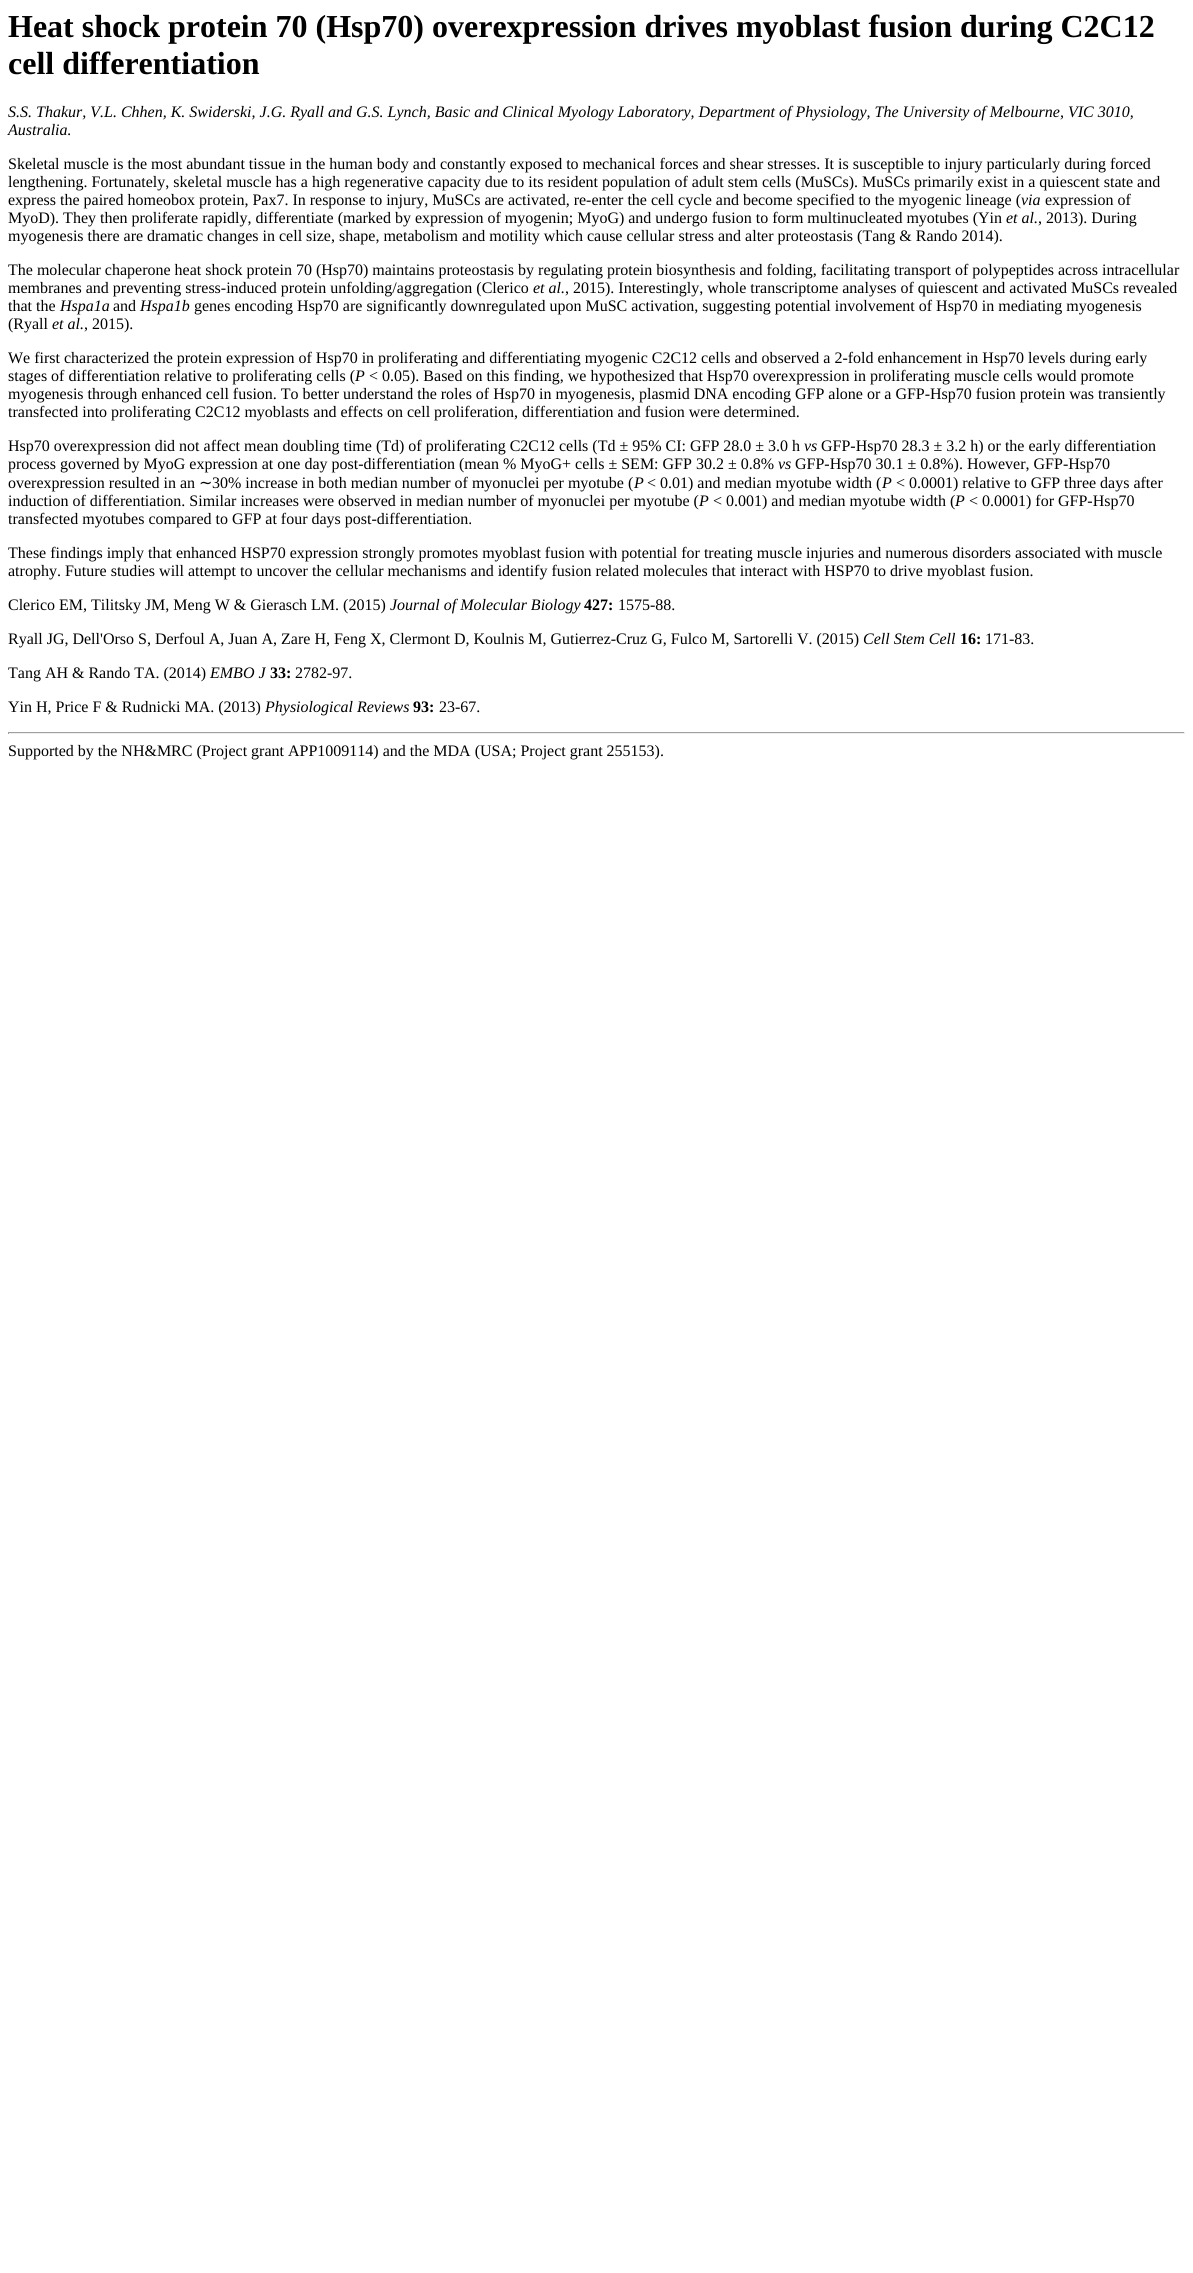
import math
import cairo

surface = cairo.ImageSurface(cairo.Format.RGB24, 1193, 2273)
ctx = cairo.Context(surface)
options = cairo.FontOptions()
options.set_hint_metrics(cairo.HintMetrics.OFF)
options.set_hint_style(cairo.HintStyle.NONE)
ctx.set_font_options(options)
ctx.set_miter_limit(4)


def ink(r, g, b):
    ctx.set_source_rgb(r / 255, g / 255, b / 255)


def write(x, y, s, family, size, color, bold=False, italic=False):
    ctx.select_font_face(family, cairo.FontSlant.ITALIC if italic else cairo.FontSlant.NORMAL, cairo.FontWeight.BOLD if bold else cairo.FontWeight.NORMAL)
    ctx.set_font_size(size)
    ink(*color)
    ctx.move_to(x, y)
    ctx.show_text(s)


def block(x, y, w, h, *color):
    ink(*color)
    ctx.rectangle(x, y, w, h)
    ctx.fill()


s1 = dict(family="Liberation Serif", size=32, color=(0, 0, 0), bold=True)
s2 = dict(family="Liberation Serif", size=16, color=(0, 0, 0), italic=True)
s3 = dict(family="Liberation Serif", size=16, color=(0, 0, 0))
s4 = dict(family="DejaVu Sans", size=16, color=(0, 0, 0))
s5 = dict(family="Liberation Serif", size=16, color=(0, 0, 0), bold=True)

ink(255, 255, 255)
ctx.paint()
write(8, 37, "Heat shock protein 70 (Hsp70) overexpression drives myoblast fusion during C2C12", **s1)
write(8, 74, "cell differentiation", **s1)
write(8, 117, "S.S. Thakur, V.L. Chhen, K. Swiderski, J.G. Ryall and G.S. Lynch, Basic and Clinical Myology Laboratory, Department of Physiology, The University of Melbourne, VIC 3010,", **s2)
write(8, 135, "Australia.", **s2)
write(8, 169, "Skeletal muscle is the most abundant tissue in the human body and constantly exposed to mechanical forces and shear stresses. It is susceptible to injury particularly during forced", **s3)
write(8, 187, "lengthening. Fortunately, skeletal muscle has a high regenerative capacity due to its resident population of adult stem cells (MuSCs). MuSCs primarily exist in a quiescent state and", **s3)
write(8, 205, "express the paired homeobox protein, Pax7. In response to injury, MuSCs are activated, re-enter the cell cycle and become specified to the myogenic lineage (", **s3)
write(1021, 205, "via", **s2)
write(1045, 205, "expression of", **s3)
write(8, 223, "MyoD). They then proliferate rapidly, differentiate (marked by expression of myogenin; MyoG) and undergo fusion to form multinucleated myotubes (Yin", **s3)
write(1006, 223, "et al.", **s2)
write(1038, 223, ", 2013). During", **s3)
write(8, 241, "myogenesis there are dramatic changes in cell size, shape, metabolism and motility which cause cellular stress and alter proteostasis (Tang & Rando 2014).", **s3)
write(8, 275, "The molecular chaperone heat shock protein 70 (Hsp70) maintains proteostasis by regulating protein biosynthesis and folding, facilitating transport of polypeptides across intracellular", **s3)
write(8, 293, "membranes and preventing stress-induced protein unfolding/aggregation (Clerico", **s3)
write(533, 293, "et al.", **s2)
write(565, 293, ", 2015). Interestingly, whole transcriptome analyses of quiescent and activated MuSCs revealed", **s3)
write(8, 311, "that the", **s3)
write(60, 311, "Hspa1a", **s2)
write(113, 311, "and", **s3)
write(140, 311, "Hspa1b", **s2)
write(194, 311, "genes encoding Hsp70 are significantly downregulated upon MuSC activation, suggesting potential involvement of Hsp70 in mediating myogenesis", **s3)
write(8, 329, "(Ryall", **s3)
write(52, 329, "et al.", **s2)
write(84, 329, ", 2015).", **s3)
write(8, 363, "We first characterized the protein expression of Hsp70 in proliferating and differentiating myogenic C2C12 cells and observed a 2-fold enhancement in Hsp70 levels during early", **s3)
write(8, 381, "stages of differentiation relative to proliferating cells (", **s3)
write(355, 381, "P", **s2)
write(369, 381, "< 0.05). Based on this finding, we hypothesized that Hsp70 overexpression in proliferating muscle cells would promote", **s3)
write(8, 399, "myogenesis through enhanced cell fusion. To better understand the roles of Hsp70 in myogenesis, plasmid DNA encoding GFP alone or a GFP-Hsp70 fusion protein was transiently", **s3)
write(8, 417, "transfected into proliferating C2C12 myoblasts and effects on cell proliferation, differentiation and fusion were determined.", **s3)
write(8, 451, "Hsp70 overexpression did not affect mean doubling time (Td) of proliferating C2C12 cells (Td ± 95% CI: GFP 28.0 ± 3.0 h", **s3)
write(804, 451, "vs", **s2)
write(821, 451, "GFP-Hsp70 28.3 ± 3.2 h) or the early differentiation", **s3)
write(8, 469, "process governed by MyoG expression at one day post-differentiation (mean % MyoG+ cells ± SEM: GFP 30.2 ± 0.8%", **s3)
write(778, 469, "vs", **s2)
write(795, 469, "GFP-Hsp70 30.1 ± 0.8%). However, GFP-Hsp70", **s3)
write(8, 488, "overexpression resulted in an", **s3)
write(199, 488, "∼", **s4)
write(212, 488, "30% increase in both median number of myonuclei per myotube (", **s3)
write(634, 488, "P", **s2)
write(647, 488, "< 0.01) and median myotube width (", **s3)
write(882, 488, "P", **s2)
write(896, 488, "< 0.0001) relative to GFP three days after", **s3)
write(8, 506, "induction of differentiation. Similar increases were observed in median number of myonuclei per myotube (", **s3)
write(699, 506, "P", **s2)
write(713, 506, "< 0.001) and median myotube width (", **s3)
write(955, 506, "P", **s2)
write(969, 506, "< 0.0001) for GFP-Hsp70", **s3)
write(8, 524, "transfected myotubes compared to GFP at four days post-differentiation.", **s3)
write(8, 558, "These findings imply that enhanced HSP70 expression strongly promotes myoblast fusion with potential for treating muscle injuries and numerous disorders associated with muscle", **s3)
write(8, 576, "atrophy. Future studies will attempt to uncover the cellular mechanisms and identify fusion related molecules that interact with HSP70 to drive myoblast fusion.", **s3)
write(8, 610, "Clerico EM, Tilitsky JM, Meng W & Gierasch LM. (2015)", **s3)
write(390, 610, "Journal of Molecular Biology", **s2)
write(584, 610, "427:", **s5)
write(618, 610, "1575-88.", **s3)
write(8, 644, "Ryall JG, Dell'Orso S, Derfoul A, Juan A, Zare H, Feng X, Clermont D, Koulnis M, Gutierrez-Cruz G, Fulco M, Sartorelli V. (2015)", **s3)
write(863, 644, "Cell Stem Cell", **s2)
write(960, 644, "16:", **s5)
write(985, 644, "171-83.", **s3)
write(8, 678, "Tang AH & Rando TA. (2014)", **s3)
write(210, 678, "EMBO J", **s2)
write(270, 678, "33:", **s5)
write(295, 678, "2782-97.", **s3)
write(8, 712, "Yin H, Price F & Rudnicki MA. (2013)", **s3)
write(265, 712, "Physiological Reviews", **s2)
write(413, 712, "93:", **s5)
write(439, 712, "23-67.", **s3)
block(8, 732, 1177, 1, 159, 159, 159)
block(1184, 732, 1, 2, 238, 238, 238)
block(8, 733, 1177, 1, 238, 238, 238)
block(8, 732, 1, 2, 159, 159, 159)
write(8, 756, "Supported by the NH&MRC (Project grant APP1009114) and the MDA (USA; Project grant 255153).", **s3)
surface.write_to_png("screenshot.png")
